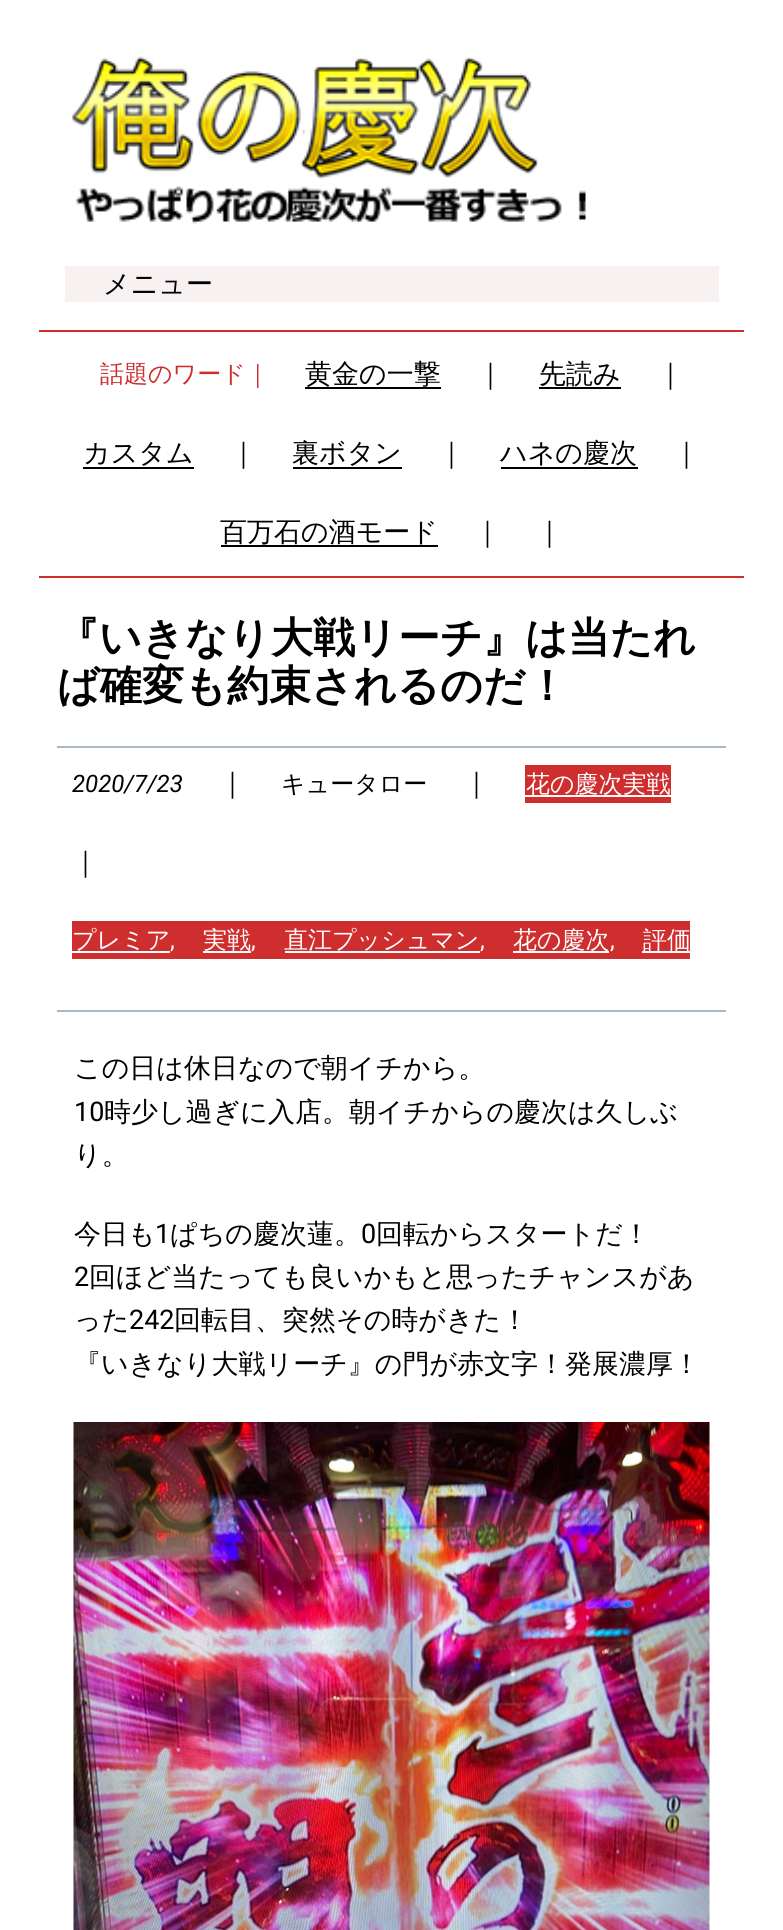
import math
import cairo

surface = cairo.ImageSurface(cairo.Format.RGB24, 783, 1930)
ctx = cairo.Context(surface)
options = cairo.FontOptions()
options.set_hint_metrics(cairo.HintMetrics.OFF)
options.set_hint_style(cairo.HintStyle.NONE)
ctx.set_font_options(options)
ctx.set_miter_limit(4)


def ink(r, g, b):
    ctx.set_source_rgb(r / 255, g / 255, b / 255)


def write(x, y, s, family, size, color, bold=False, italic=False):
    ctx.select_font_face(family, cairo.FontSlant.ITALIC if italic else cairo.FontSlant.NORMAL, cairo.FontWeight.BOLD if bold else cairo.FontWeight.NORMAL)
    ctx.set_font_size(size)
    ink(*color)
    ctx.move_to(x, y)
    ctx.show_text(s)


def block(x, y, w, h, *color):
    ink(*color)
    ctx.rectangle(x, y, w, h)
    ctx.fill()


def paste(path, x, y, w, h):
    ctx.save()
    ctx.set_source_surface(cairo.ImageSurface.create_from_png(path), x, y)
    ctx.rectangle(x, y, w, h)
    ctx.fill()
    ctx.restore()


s1 = dict(family="WenQuanYi Zen Hei Medium", size=27, color=(0, 0, 0))
s2 = dict(family="WenQuanYi Zen Hei Medium", size=24, color=(207, 46, 46))
s3 = dict(family="WenQuanYi Zen Hei", size=42, color=(0, 0, 0), bold=True)
s4 = dict(family="Roboto", size=24, color=(0, 0, 0), italic=True)
s5 = dict(family="WenQuanYi Zen Hei Medium", size=24, color=(0, 0, 0))
s6 = dict(family="WenQuanYi Zen Hei Medium", size=24, color=(255, 255, 255))
s7 = dict(family="Roboto", size=24, color=(255, 255, 255))
s8 = dict(family="Roboto", size=27, color=(0, 0, 0))

ink(255, 255, 255)
ctx.paint()
paste("pic1.png", 71, 56, 515, 168)
block(65, 266, 654, 36, 247, 241, 242)
write(103, 293, "メニュー", **s1)
block(39, 330, 705, 2, 207, 46, 46)
write(100, 382, "話題のワード｜", **s2)
block(305, 387, 136, 2, 0, 0, 0)
write(305, 383, "黄金の一撃", **s1)
write(477, 383, "｜", **s1)
write(539, 383, "先読み", **s1)
block(539, 387, 82, 2, 0, 0, 0)
write(657, 383, "｜", **s1)
write(83, 462, "カスタム", **s1)
block(83, 467, 111, 2, 0, 0, 0)
write(230, 462, "｜", **s1)
write(292, 462, "裏ボタン", **s1)
block(293, 467, 109, 2, 0, 0, 0)
write(438, 462, "｜", **s1)
write(500, 462, "ハネの慶次", **s1)
block(501, 467, 137, 2, 0, 0, 0)
write(673, 462, "｜", **s1)
write(220, 541, "百万石の酒モード", **s1)
block(221, 545, 217, 2, 0, 0, 0)
write(474, 541, "｜", **s1)
write(536, 541, "｜", **s1)
block(39, 576, 705, 2, 207, 46, 46)
write(57, 652, "『いきなり大戦リーチ』は当たれ", **s3)
write(57, 700, "ば確変も約束されるのだ！", **s3)
block(57, 746, 669, 2, 171, 184, 195)
write(72, 792, "2020/7/23", **s4)
write(219, 792, "｜", **s1)
write(281, 792, "キュータロー", **s5)
write(463, 792, "｜", **s1)
block(525, 765, 146, 38, 207, 46, 46)
block(525, 795, 146, 2, 255, 255, 255)
write(526, 792, "花の慶次実戦", **s6)
write(72, 871, "｜", **s1)
block(72, 921, 618, 38, 207, 46, 46)
write(72, 948, "プレミア", **s6)
block(72, 951, 98, 2, 255, 255, 255)
write(170, 948, ",", **s7)
block(203, 951, 48, 2, 255, 255, 255)
write(203, 948, "実戦", **s6)
write(251, 948, ",", **s7)
write(284, 948, "直江プッシュマン", **s6)
block(285, 951, 195, 2, 255, 255, 255)
write(480, 948, ",", **s7)
block(513, 951, 96, 2, 255, 255, 255)
write(513, 948, "花の慶次", **s6)
write(610, 948, ",", **s7)
block(642, 951, 48, 2, 255, 255, 255)
write(643, 948, "評価", **s6)
block(57, 1010, 669, 2, 171, 184, 195)
write(74, 1077, "この日は休日なので朝イチから。", **s1)
write(74, 1121, "10", **s8)
write(104, 1121, "時少し過ぎに入店。朝イチからの慶次は久しぶ", **s1)
write(74, 1164, "り。", **s1)
write(74, 1243, "今日も", **s1)
write(155, 1243, "1", **s8)
write(170, 1243, "ぱちの慶次蓮。", **s1)
write(361, 1243, "0", **s8)
write(376, 1243, "回転からスタートだ！", **s1)
write(74, 1286, "2", **s8)
write(89, 1286, "回ほど当たっても良いかもと思ったチャンスがあ", **s1)
write(74, 1329, "った", **s1)
write(129, 1329, "242", **s8)
write(174, 1329, "回転目、突然その時がきた！", **s1)
write(74, 1373, "『いきなり大戦リーチ』の門が赤文字！発展濃厚！", **s1)
paste("pic2.png", 73, 1422, 637, 508)
surface.write_to_png("screenshot.png")
